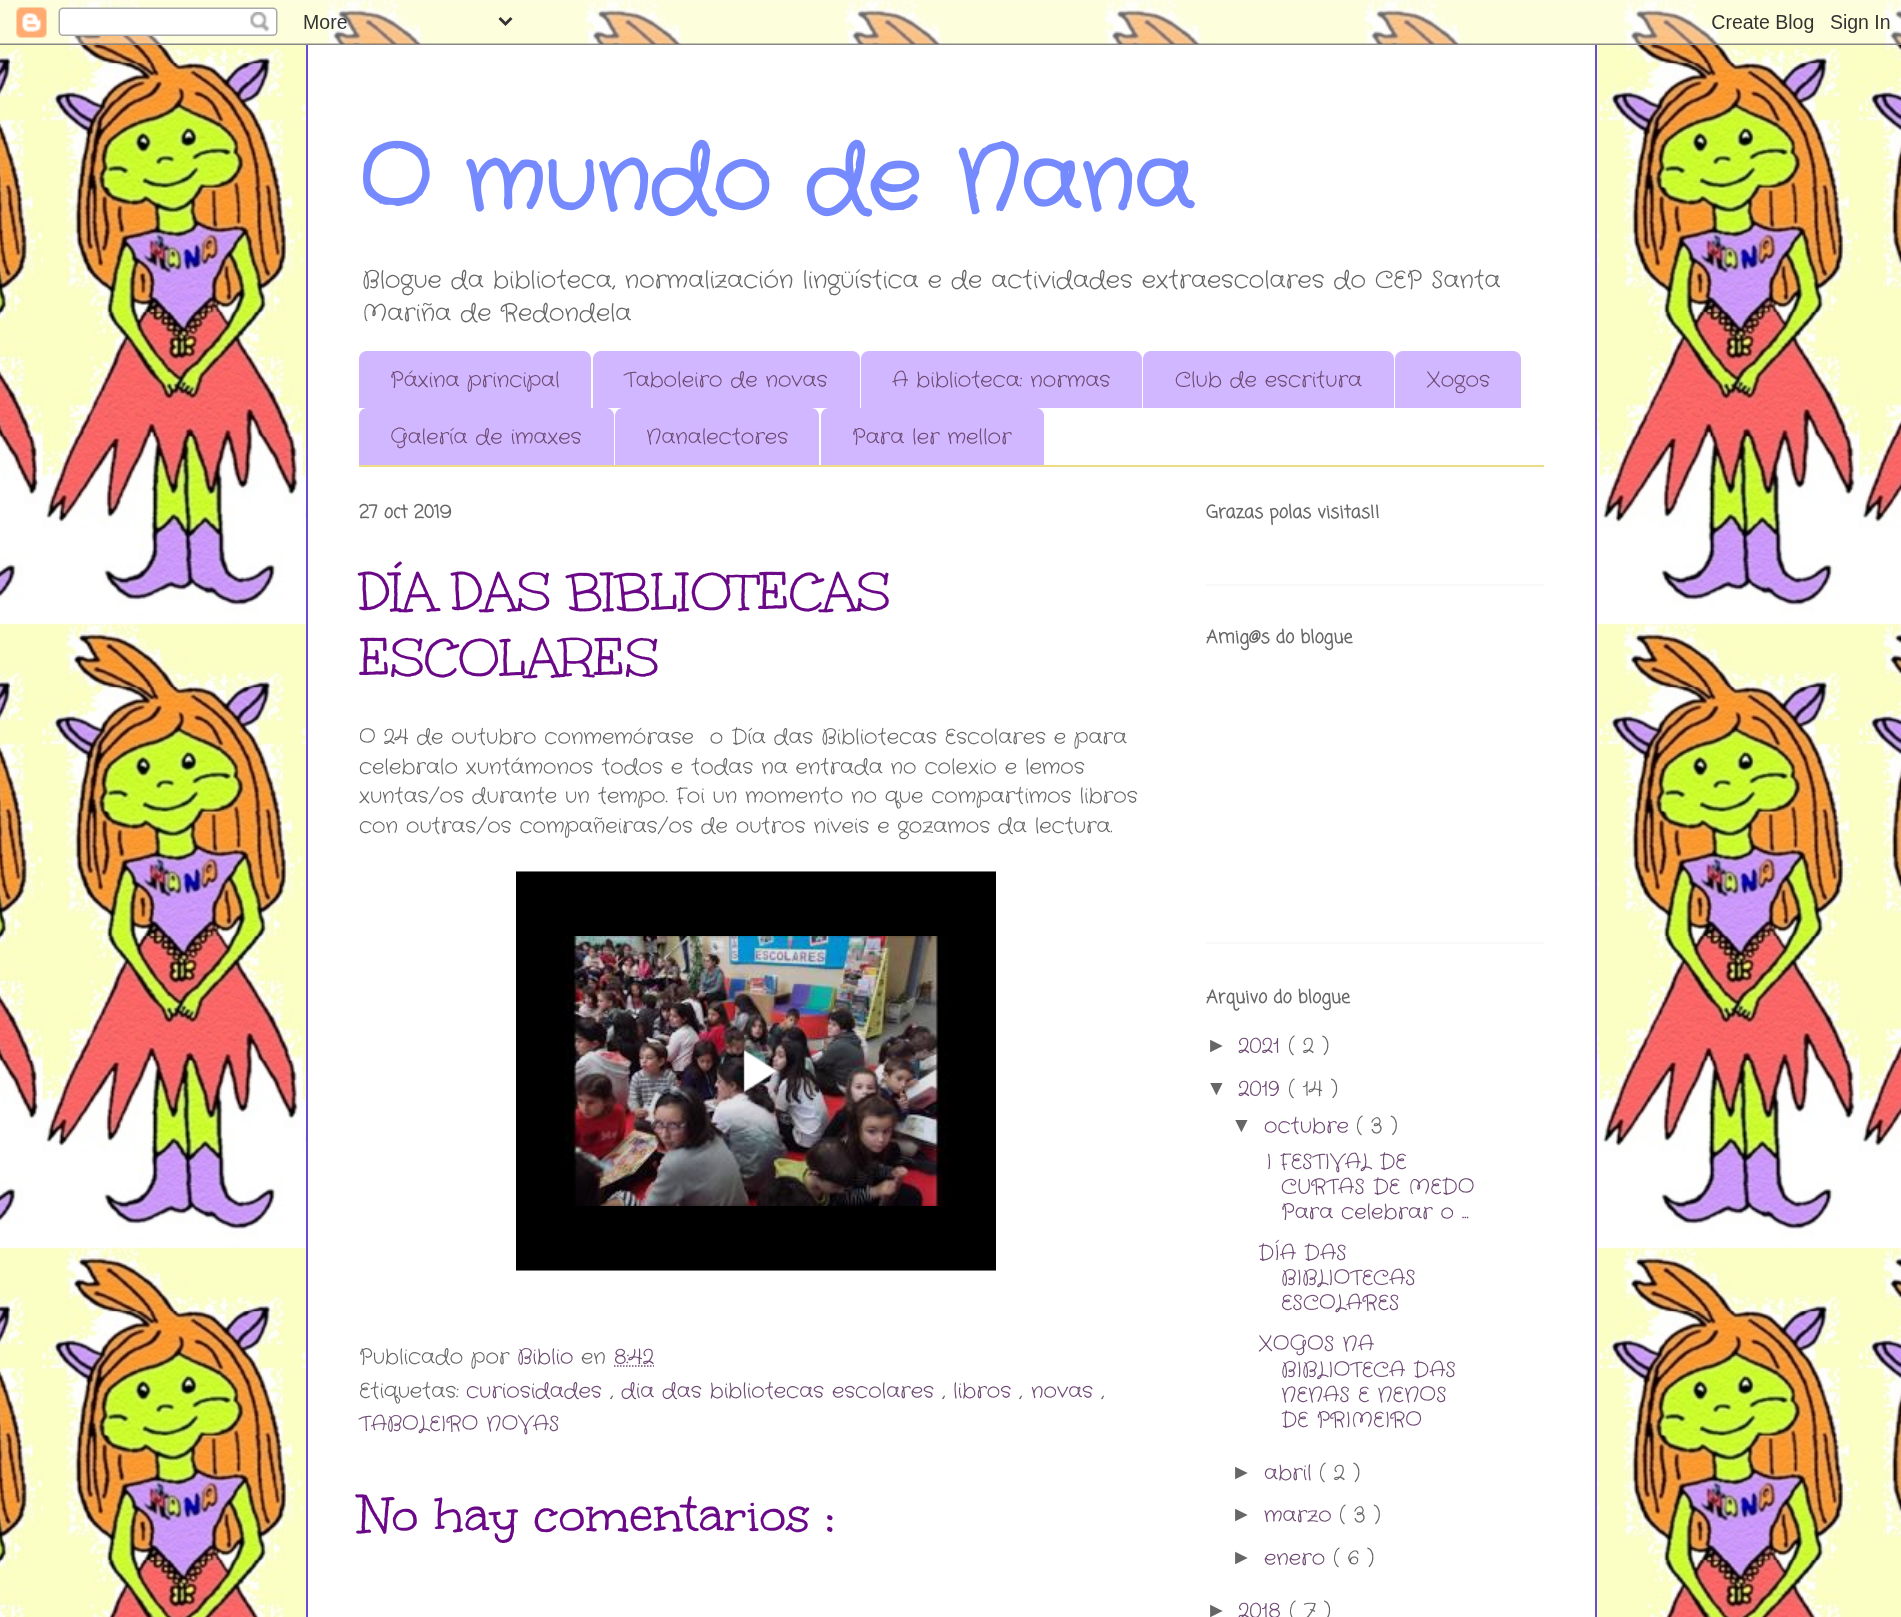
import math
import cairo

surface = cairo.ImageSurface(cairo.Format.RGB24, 1901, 1617)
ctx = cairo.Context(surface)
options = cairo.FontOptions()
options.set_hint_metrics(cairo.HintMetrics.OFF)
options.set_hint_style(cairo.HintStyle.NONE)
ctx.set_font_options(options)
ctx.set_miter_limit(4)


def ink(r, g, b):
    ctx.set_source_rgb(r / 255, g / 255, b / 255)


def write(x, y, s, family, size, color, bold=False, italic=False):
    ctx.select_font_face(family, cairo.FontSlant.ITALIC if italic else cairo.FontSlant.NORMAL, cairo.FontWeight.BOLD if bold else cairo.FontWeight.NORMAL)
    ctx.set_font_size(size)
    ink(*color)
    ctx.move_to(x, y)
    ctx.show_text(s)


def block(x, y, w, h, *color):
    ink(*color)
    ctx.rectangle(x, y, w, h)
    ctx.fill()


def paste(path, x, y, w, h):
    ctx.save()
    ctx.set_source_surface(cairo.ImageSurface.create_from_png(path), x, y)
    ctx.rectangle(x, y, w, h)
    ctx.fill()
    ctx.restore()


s1 = dict(family="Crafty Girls", size=90, color=(117, 138, 255), bold=True)
s2 = dict(family="Crafty Girls", size=24.15, color=(102, 102, 102))
s3 = dict(family="Crafty Girls", size=21, color=(110, 73, 115))
s4 = dict(family="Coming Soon", size=18, color=(102, 102, 102), bold=True)
s5 = dict(family="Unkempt", size=54, color=(106, 8, 136))
s6 = dict(family="Crafty Girls", size=21, color=(102, 102, 102))
s7 = dict(family="Liberation Sans", size=21, color=(102, 102, 102))

ink(255, 255, 255)
ctx.paint()
paste("pic1.png", 0, 0, 1901, 1617)
paste("pic2.png", 0, 0, 1901, 45)
block(308, 45, 1287, 1572, 255, 255, 255)
block(1595, 45, 2, 1572, 105, 76, 216)
block(306, 45, 2, 1572, 105, 76, 216)
write(359, 207, "O mundo de Nana", **s1)
write(362, 287, "Blogue da biblioteca, normalización lingüística e de actividades extraescolares do CEP Santa", **s2)
write(362, 320, "Mariña de Redondela", **s2)
block(359, 465, 1185, 2, 237, 220, 131)
ink(209, 183, 255)
ctx.new_path()
ctx.move_to(367, 351)
ctx.line_to(583, 351)
ctx.curve_to(587.5, 351, 591, 354.5, 591, 359)
ctx.line_to(591, 408)
ctx.line_to(359, 408)
ctx.line_to(359, 359)
ctx.curve_to(359, 354.5, 362.5, 351, 367, 351)
ctx.close_path()
ctx.fill()
write(390, 386, "Páxina principal", **s3)
ink(209, 183, 255)
ctx.new_path()
ctx.move_to(601, 351)
ctx.line_to(852, 351)
ctx.curve_to(856.5, 351, 860, 354.5, 860, 359)
ctx.line_to(860, 408)
ctx.line_to(593, 408)
ctx.line_to(593, 359)
ctx.curve_to(593, 354.5, 596.5, 351, 601, 351)
ctx.close_path()
ctx.fill()
write(624, 386, "Taboleiro de novas", **s3)
ink(209, 183, 255)
ctx.new_path()
ctx.move_to(869, 351)
ctx.line_to(1134, 351)
ctx.curve_to(1138.5, 351, 1142, 354.5, 1142, 359)
ctx.line_to(1142, 408)
ctx.line_to(861, 408)
ctx.line_to(861, 359)
ctx.curve_to(861, 354.5, 864.5, 351, 869, 351)
ctx.close_path()
ctx.fill()
write(892, 386, "A biblioteca: normas", **s3)
ink(209, 183, 255)
ctx.new_path()
ctx.move_to(1151, 351)
ctx.line_to(1386, 351)
ctx.curve_to(1390.5, 351, 1394, 354.5, 1394, 359)
ctx.line_to(1394, 408)
ctx.line_to(1143, 408)
ctx.line_to(1143, 359)
ctx.curve_to(1143, 354.5, 1146.5, 351, 1151, 351)
ctx.close_path()
ctx.fill()
write(1175, 386, "Club de escritura", **s3)
ink(209, 183, 255)
ctx.new_path()
ctx.move_to(1403, 351)
ctx.line_to(1513, 351)
ctx.curve_to(1517.5, 351, 1521, 354.5, 1521, 359)
ctx.line_to(1521, 408)
ctx.line_to(1395, 408)
ctx.line_to(1395, 359)
ctx.curve_to(1395, 354.5, 1398.5, 351, 1403, 351)
ctx.close_path()
ctx.fill()
write(1426, 386, "Xogos", **s3)
ink(209, 183, 255)
ctx.new_path()
ctx.move_to(367, 408)
ctx.line_to(606, 408)
ctx.curve_to(610.5, 408, 614, 411.5, 614, 416)
ctx.line_to(614, 465)
ctx.line_to(359, 465)
ctx.line_to(359, 416)
ctx.curve_to(359, 411.5, 362.5, 408, 367, 408)
ctx.close_path()
ctx.fill()
write(390, 443, "Galería de imaxes", **s3)
ink(209, 183, 255)
ctx.new_path()
ctx.move_to(623, 408)
ctx.line_to(811, 408)
ctx.curve_to(815.5, 408, 819, 411.5, 819, 416)
ctx.line_to(819, 465)
ctx.line_to(615, 465)
ctx.line_to(615, 416)
ctx.curve_to(615, 411.5, 618.5, 408, 623, 408)
ctx.close_path()
ctx.fill()
write(646, 443, "Nanalectores", **s3)
ink(209, 183, 255)
ctx.new_path()
ctx.move_to(829, 408)
ctx.line_to(1036, 408)
ctx.curve_to(1040.5, 408, 1044, 411.5, 1044, 416)
ctx.line_to(1044, 465)
ctx.line_to(821, 465)
ctx.line_to(821, 416)
ctx.curve_to(821, 411.5, 824.5, 408, 829, 408)
ctx.close_path()
ctx.fill()
write(852, 443, "Para ler mellor", **s3)
write(359, 518, "27 oct 2019", **s4)
write(359, 611, "DÍA DAS BIBLIOTECAS", **s5)
write(359, 677, "ESCOLARES", **s5)
write(359, 743, "O 24 de outubro conmemórase  o Día das Bibliotecas Escolares e para", **s6)
write(359, 773, "celebralo xuntámonos todos e todas na entrada no colexio e lemos", **s6)
write(359, 802, "xuntas/os durante un tempo. Foi un momento no que compartimos libros", **s6)
write(359, 832, "con outras/os compañeiras/os de outros niveis e gozamos da lectura.", **s6)
paste("pic3.png", 516, 871, 480, 400)
write(359, 1363, "Publicado por", **s6)
write(517, 1363, "Biblio", **s3)
write(581, 1363, "en", **s6)
write(614, 1363, "8:42", **s3)
ctx.new_path()
ctx.move_to(614, 1366)
ctx.line_to(654, 1366)
ctx.set_line_width(1.5)
ctx.set_dash([1.5, 1.5])
ctx.stroke()
write(359, 1397, "Etiquetas:", **s6)
write(466, 1397, "curiosidades", **s3)
write(610, 1397, ",", **s6)
write(621, 1397, "dia das bibliotecas escolares", **s3)
write(942, 1397, ",", **s6)
write(953, 1397, "libros", **s3)
write(1019, 1397, ",", **s6)
write(1031, 1397, "novas", **s3)
write(1101, 1397, ",", **s6)
write(359, 1430, "TABOLEIRO NOVAS", **s3)
write(359, 1534, "No hay comentarios :", **s5)
block(1206, 584, 338, 2, 249, 249, 249)
write(1206, 518, "Grazas polas visitas!!", **s4)
block(1206, 942, 338, 2, 249, 249, 249)
write(1206, 643, "Amig@s do blogue", **s4)
write(1206, 1003, "Arquivo do blogue", **s4)
write(1206, 1052, "►", **s7)
write(1238, 1052, "2021", **s3)
write(1288, 1052, "( 2 )", **s6)
write(1206, 1095, "▼", **s7)
write(1238, 1095, "2019", **s3)
write(1288, 1095, "( 14 )", **s6)
write(1231, 1132, "▼", **s7)
write(1264, 1132, "octubre", **s3)
write(1356, 1132, "( 3 )", **s6)
write(1266, 1168, "I FESTIVAL DE", **s3)
write(1281, 1193, "CURTAS DE MEDO", **s3)
write(1281, 1218, "Para celebrar o ...", **s3)
write(1258, 1259, "DÍA DAS", **s3)
write(1281, 1284, "BIBLIOTECAS", **s3)
write(1281, 1309, "ESCOLARES", **s3)
write(1258, 1350, "XOGOS NA", **s3)
write(1281, 1376, "BIBLIOTECA DAS", **s3)
write(1281, 1401, "NENAS E NENOS", **s3)
write(1281, 1426, "DE PRIMEIRO", **s3)
write(1231, 1479, "►", **s7)
write(1264, 1479, "abril", **s3)
write(1319, 1479, "( 2 )", **s6)
write(1231, 1521, "►", **s7)
write(1264, 1521, "marzo", **s3)
write(1339, 1521, "( 3 )", **s6)
write(1231, 1564, "►", **s7)
write(1264, 1564, "enero", **s3)
write(1333, 1564, "( 6 )", **s6)
write(1206, 1617, "►", **s7)
write(1238, 1617, "2018", **s3)
write(1289, 1617, "( 7 )", **s6)
surface.write_to_png("screenshot.png")
